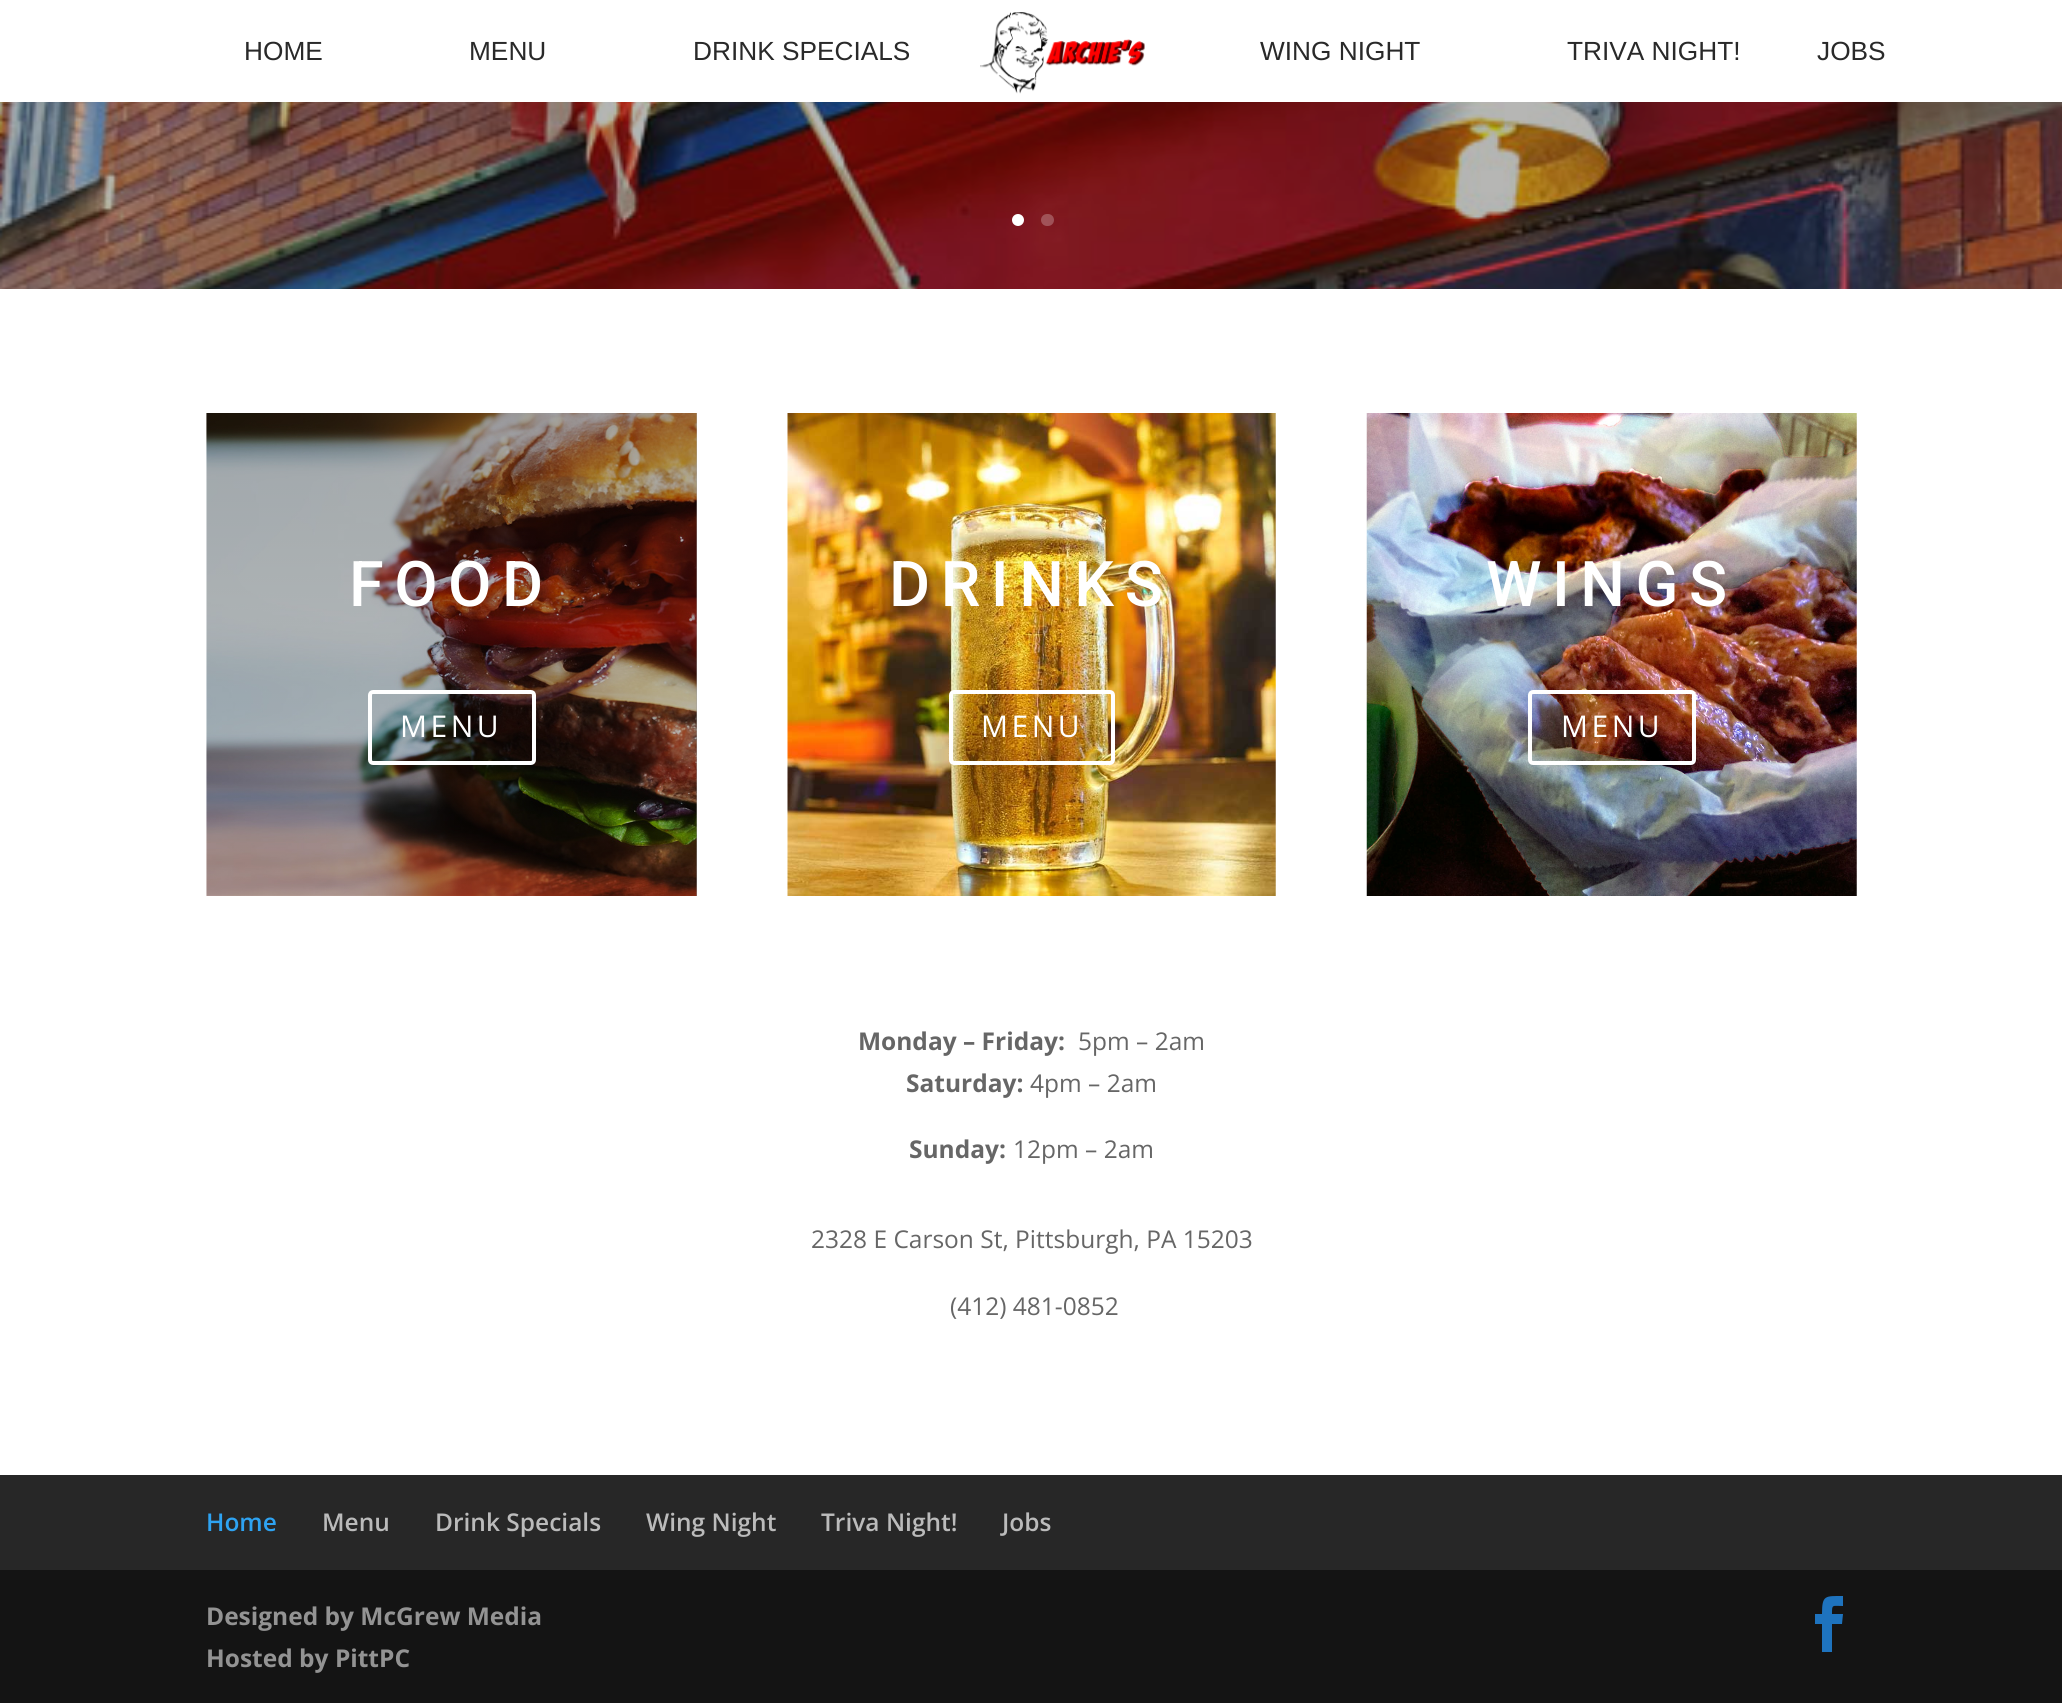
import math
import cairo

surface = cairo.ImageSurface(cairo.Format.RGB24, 2062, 1703)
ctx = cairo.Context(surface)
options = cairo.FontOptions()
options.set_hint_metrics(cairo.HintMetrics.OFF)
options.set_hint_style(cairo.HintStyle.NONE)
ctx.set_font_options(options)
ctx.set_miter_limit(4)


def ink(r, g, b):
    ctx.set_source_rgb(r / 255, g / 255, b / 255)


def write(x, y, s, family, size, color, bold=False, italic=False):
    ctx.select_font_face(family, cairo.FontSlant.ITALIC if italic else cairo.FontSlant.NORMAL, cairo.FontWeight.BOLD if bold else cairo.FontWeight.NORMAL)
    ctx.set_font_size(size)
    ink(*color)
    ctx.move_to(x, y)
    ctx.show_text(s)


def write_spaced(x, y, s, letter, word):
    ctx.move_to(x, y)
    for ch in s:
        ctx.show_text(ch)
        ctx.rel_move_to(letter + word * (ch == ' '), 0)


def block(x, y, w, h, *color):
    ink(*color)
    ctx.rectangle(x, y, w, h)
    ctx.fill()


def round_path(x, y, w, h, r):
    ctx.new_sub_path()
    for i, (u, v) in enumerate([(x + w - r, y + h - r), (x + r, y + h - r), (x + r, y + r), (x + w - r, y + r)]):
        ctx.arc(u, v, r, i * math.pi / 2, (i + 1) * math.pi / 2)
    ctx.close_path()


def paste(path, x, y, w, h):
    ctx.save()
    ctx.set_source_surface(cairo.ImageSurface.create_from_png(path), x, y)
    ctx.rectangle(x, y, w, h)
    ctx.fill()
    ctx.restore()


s1 = dict(family="Liberation Sans", size=26.25, color=(41, 41, 41))
s2 = dict(family="Open Sans", size=24.5, color=(102, 102, 102), bold=True)
s3 = dict(family="Open Sans", size=24.5, color=(102, 102, 102))
s4 = dict(family="Open Sans SemiBold", size=24.5, color=(46, 163, 242))
s5 = dict(family="Open Sans SemiBold", size=24.5, color=(187, 187, 187))
s6 = dict(family="Open Sans", size=24.5, color=(147, 147, 147), bold=True)

ink(39, 39, 39)
ctx.paint()
block(0, 0, 2062, 102, 255, 255, 255)
write(244, 60, "HOME", **s1)
write(469, 60, "MENU", **s1)
write(693, 60, "DRINK SPECIALS", **s1)
paste("pic1.png", 980, 12, 165, 82)
write(1260, 60, "WING NIGHT", **s1)
write(1567, 60, "TRIVA NIGHT!", **s1)
write(1817, 60, "JOBS", **s1)
paste("pic2.png", 0, 102, 2062, 187)
ink(255, 255, 255)
ctx.arc(1018, 220, 6, 0, 2 * math.pi)
ctx.fill()
ctx.set_source_rgba(1, 1, 1, 0.25)
round_path(1041, 214, 13, 12, 6)
ctx.fill()
block(0, 289, 2062, 1186, 255, 255, 255)
block(696, 413, 1, 483, 133, 133, 133)
paste("pic3.png", 206, 413, 491, 483)
ctx.select_font_face("Roboto Medium")
ctx.set_font_size(63)
ink(255, 255, 255)
write_spaced(349, 606, "FOOD", 10.5, 0)
round_path(370, 692, 164, 71, 3)
ctx.set_line_width(4)
ctx.stroke()
ctx.select_font_face("Open Sans")
ctx.set_font_size(30)
write_spaced(400, 737, "MENU", 3.5, 0)
paste("pic4.png", 787, 413, 489, 483)
ctx.select_font_face("Roboto Medium")
ctx.set_font_size(63)
write_spaced(889, 606, "DRINKS", 10.5, 0)
round_path(951, 692, 162, 71, 3)
ctx.stroke()
ctx.select_font_face("Open Sans")
ctx.set_font_size(30)
write_spaced(981, 737, "MENU", 3.5, 0)
paste("pic5.png", 1366, 413, 491, 483)
ctx.select_font_face("Roboto Medium")
ctx.set_font_size(63)
write_spaced(1486, 606, "WINGS", 10.5, 0)
round_path(1530, 692, 164, 71, 3)
ctx.stroke()
ctx.select_font_face("Open Sans")
ctx.set_font_size(30)
write_spaced(1561, 737, "MENU", 3.5, 0)
write(858, 1050, "Monday – Friday:", **s2)
write(1078, 1050, "5pm – 2am", **s3)
write(906, 1092, "Saturday:", **s2)
write(1030, 1092, "4pm – 2am", **s3)
write(909, 1158, "Sunday:", **s2)
write(1013, 1158, "12pm – 2am", **s3)
write(811, 1248, "2328 E Carson St, Pittsburgh, PA 15203", **s3)
write(950, 1315, "(412) 481-0852", **s3)
write(206, 1531, "Home", **s4)
write(322, 1531, "Menu", **s5)
write(435, 1531, "Drink Specials", **s5)
write(646, 1531, "Wing Night", **s5)
write(821, 1531, "Triva Night!", **s5)
write(1002, 1531, "Jobs", **s5)
block(0, 1570, 2062, 133, 20, 20, 20)
write(206, 1625, "Designed by McGrew Media", **s6)
write(206, 1667, "Hosted by PittPC", **s6)
ink(30, 115, 190)
ctx.new_path()
ctx.move_to(1822, 1652)
ctx.line_to(1832, 1652)
ctx.line_to(1832, 1624)
ctx.line_to(1842, 1624)
ctx.line_to(1843, 1614)
ctx.line_to(1832, 1614)
ctx.curve_to(1832, 1604, 1832, 1606, 1843, 1606)
ctx.line_to(1843, 1596)
ctx.curve_to(1825, 1596, 1822, 1595, 1822, 1614)
ctx.line_to(1815, 1614)
ctx.line_to(1815, 1624)
ctx.line_to(1822, 1624)
ctx.close_path()
ctx.fill()
surface.write_to_png("screenshot.png")
